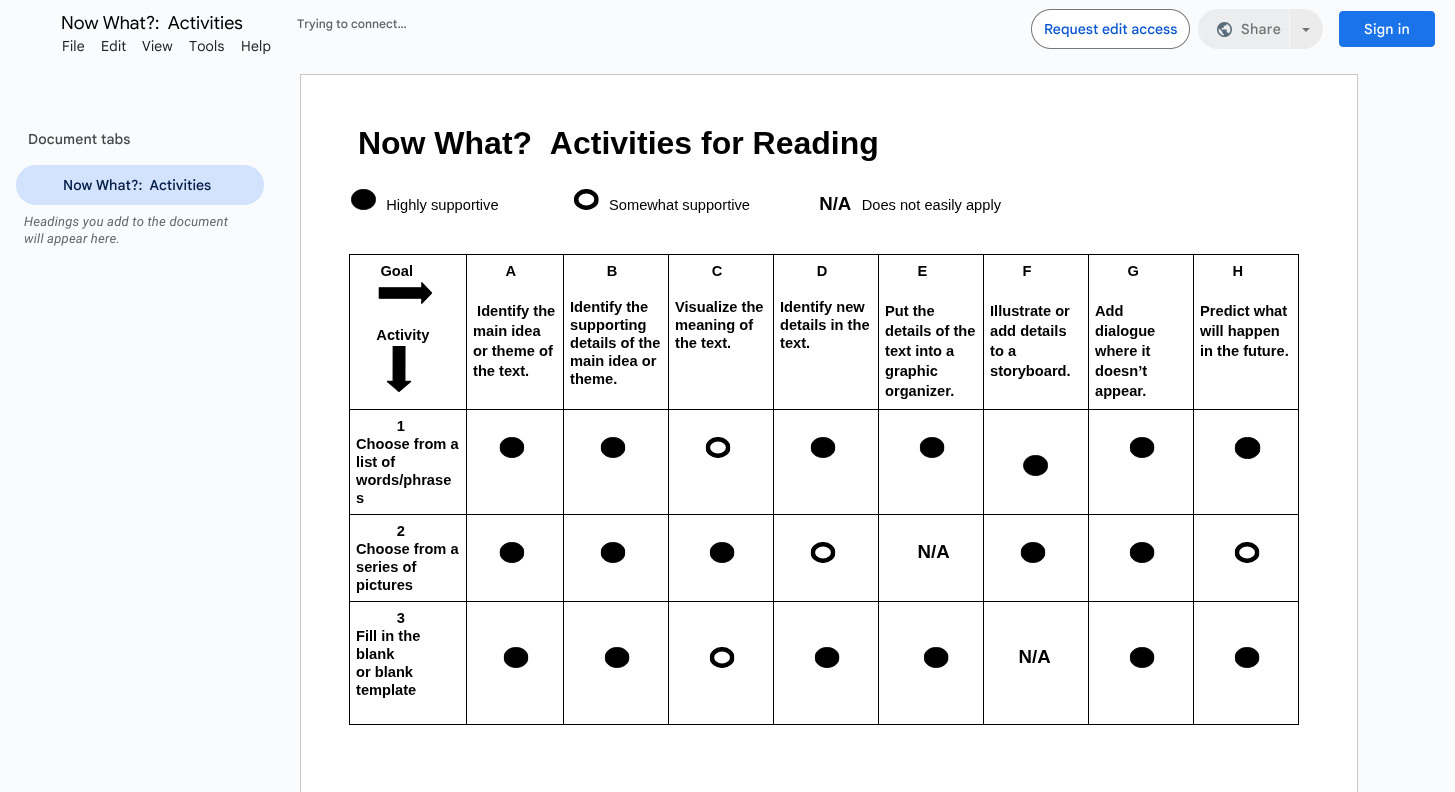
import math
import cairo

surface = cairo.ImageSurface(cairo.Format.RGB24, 1455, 792)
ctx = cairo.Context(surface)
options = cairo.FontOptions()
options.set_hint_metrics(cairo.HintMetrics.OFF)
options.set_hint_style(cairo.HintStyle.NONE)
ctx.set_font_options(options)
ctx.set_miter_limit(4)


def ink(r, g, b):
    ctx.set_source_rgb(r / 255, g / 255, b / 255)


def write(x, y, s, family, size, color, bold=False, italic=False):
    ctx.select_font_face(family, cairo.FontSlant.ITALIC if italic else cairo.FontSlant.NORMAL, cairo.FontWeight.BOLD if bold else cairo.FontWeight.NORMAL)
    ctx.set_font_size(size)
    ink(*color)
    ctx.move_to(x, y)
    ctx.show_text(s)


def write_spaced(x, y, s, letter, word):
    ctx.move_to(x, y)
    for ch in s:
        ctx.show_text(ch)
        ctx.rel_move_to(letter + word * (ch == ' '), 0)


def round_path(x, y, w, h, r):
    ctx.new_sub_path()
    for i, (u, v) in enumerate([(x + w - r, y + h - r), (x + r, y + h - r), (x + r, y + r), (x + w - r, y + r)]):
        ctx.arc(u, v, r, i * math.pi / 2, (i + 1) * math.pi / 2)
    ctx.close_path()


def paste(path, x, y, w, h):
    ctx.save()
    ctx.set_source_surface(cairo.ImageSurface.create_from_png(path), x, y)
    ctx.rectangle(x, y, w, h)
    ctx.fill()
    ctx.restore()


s1 = dict(family="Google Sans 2", size=18, color=(0, 0, 0))
s2 = dict(family="Google Sans Medium", size=12, color=(95, 99, 104))
s3 = dict(family="Google Sans Medium", size=14, color=(11, 87, 208))
s4 = dict(family="Google Sans Medium", size=14, color=(4, 30, 73))

ink(249, 251, 253)
ctx.paint()
write(61, 29, "Now What?:  Activities", **s1)
write(297, 28, "Trying to connect…", **s2)
ink(255, 255, 255)
round_path(1031.5, 9.5, 158, 39, 19.5)
ctx.fill_preserve()
ink(116, 119, 117)
ctx.set_line_width(1)
ctx.stroke()
write(1044, 34, "Request edit access", **s3)
ink(236, 237, 238)
ctx.new_path()
ctx.move_to(1218, 9)
ctx.line_to(1290, 9)
ctx.line_to(1290, 49)
ctx.line_to(1218, 49)
ctx.curve_to(1207, 49, 1198, 40, 1198, 29)
ctx.curve_to(1198, 18, 1207, 9, 1218, 9)
ctx.close_path()
ctx.fill()
paste("pic1.png", 1217, 22, 15, 15)
ink(114, 115, 115)
write_spaced(1241, 34, "Share", 0.25, 0)
ctx.set_source_rgba(0.894, 0.894, 0.894, 0.62)
ctx.new_path()
ctx.move_to(1289, 9)
ctx.line_to(1303, 9)
ctx.curve_to(1314, 9, 1323, 18, 1323, 29)
ctx.curve_to(1323, 40, 1314, 49, 1303, 49)
ctx.line_to(1289, 49)
ctx.close_path()
ctx.fill()
ink(248, 248, 249)
ctx.new_path()
ctx.move_to(1290, 10)
ctx.line_to(1289, 9)
ctx.line_to(1289, 49)
ctx.line_to(1290, 48)
ctx.close_path()
ctx.fill()
ink(114, 115, 115)
ctx.new_path()
ctx.move_to(1302, 28)
ctx.line_to(1310, 28)
ctx.line_to(1306, 32)
ctx.close_path()
ctx.fill()
ink(26, 115, 232)
round_path(1339, 11, 96, 36, 4)
ctx.fill()
ink(255, 255, 255)
write_spaced(1364, 34, "Sign in", 0.25, 0)
ctx.select_font_face("Google Sans")
ink(32, 33, 36)
write_spaced(62, 51, "File", 0.2, 0)
write_spaced(101, 51, "Edit", 0.2, 0)
write_spaced(142, 51, "View", 0.2, 0)
write_spaced(189, 51, "Tools", 0.2, 0)
write_spaced(241, 51, "Help", 0.2, 0)
ctx.select_font_face("Google Sans Medium")
ink(68, 71, 70)
write_spaced(28, 144, "Document tabs", 0.1, 0)
ink(211, 227, 253)
round_path(16, 165, 248, 40, 20)
ctx.fill()
write(63, 190, "Now What?:  Activities", **s4)
ctx.select_font_face("Roboto", cairo.FontSlant.ITALIC)
ctx.set_font_size(13)
ink(95, 99, 104)
write_spaced(24, 226, "Headings you add to the document", 0.2, 0)
write_spaced(24, 243, "will appear here.", 0.2, 0)
ctx.rectangle(300.5, 74.5, 1057, 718)
ink(199, 199, 199)
ctx.stroke()
paste("pic2.png", 301, 75, 1056, 717)
surface.write_to_png("screenshot.png")
